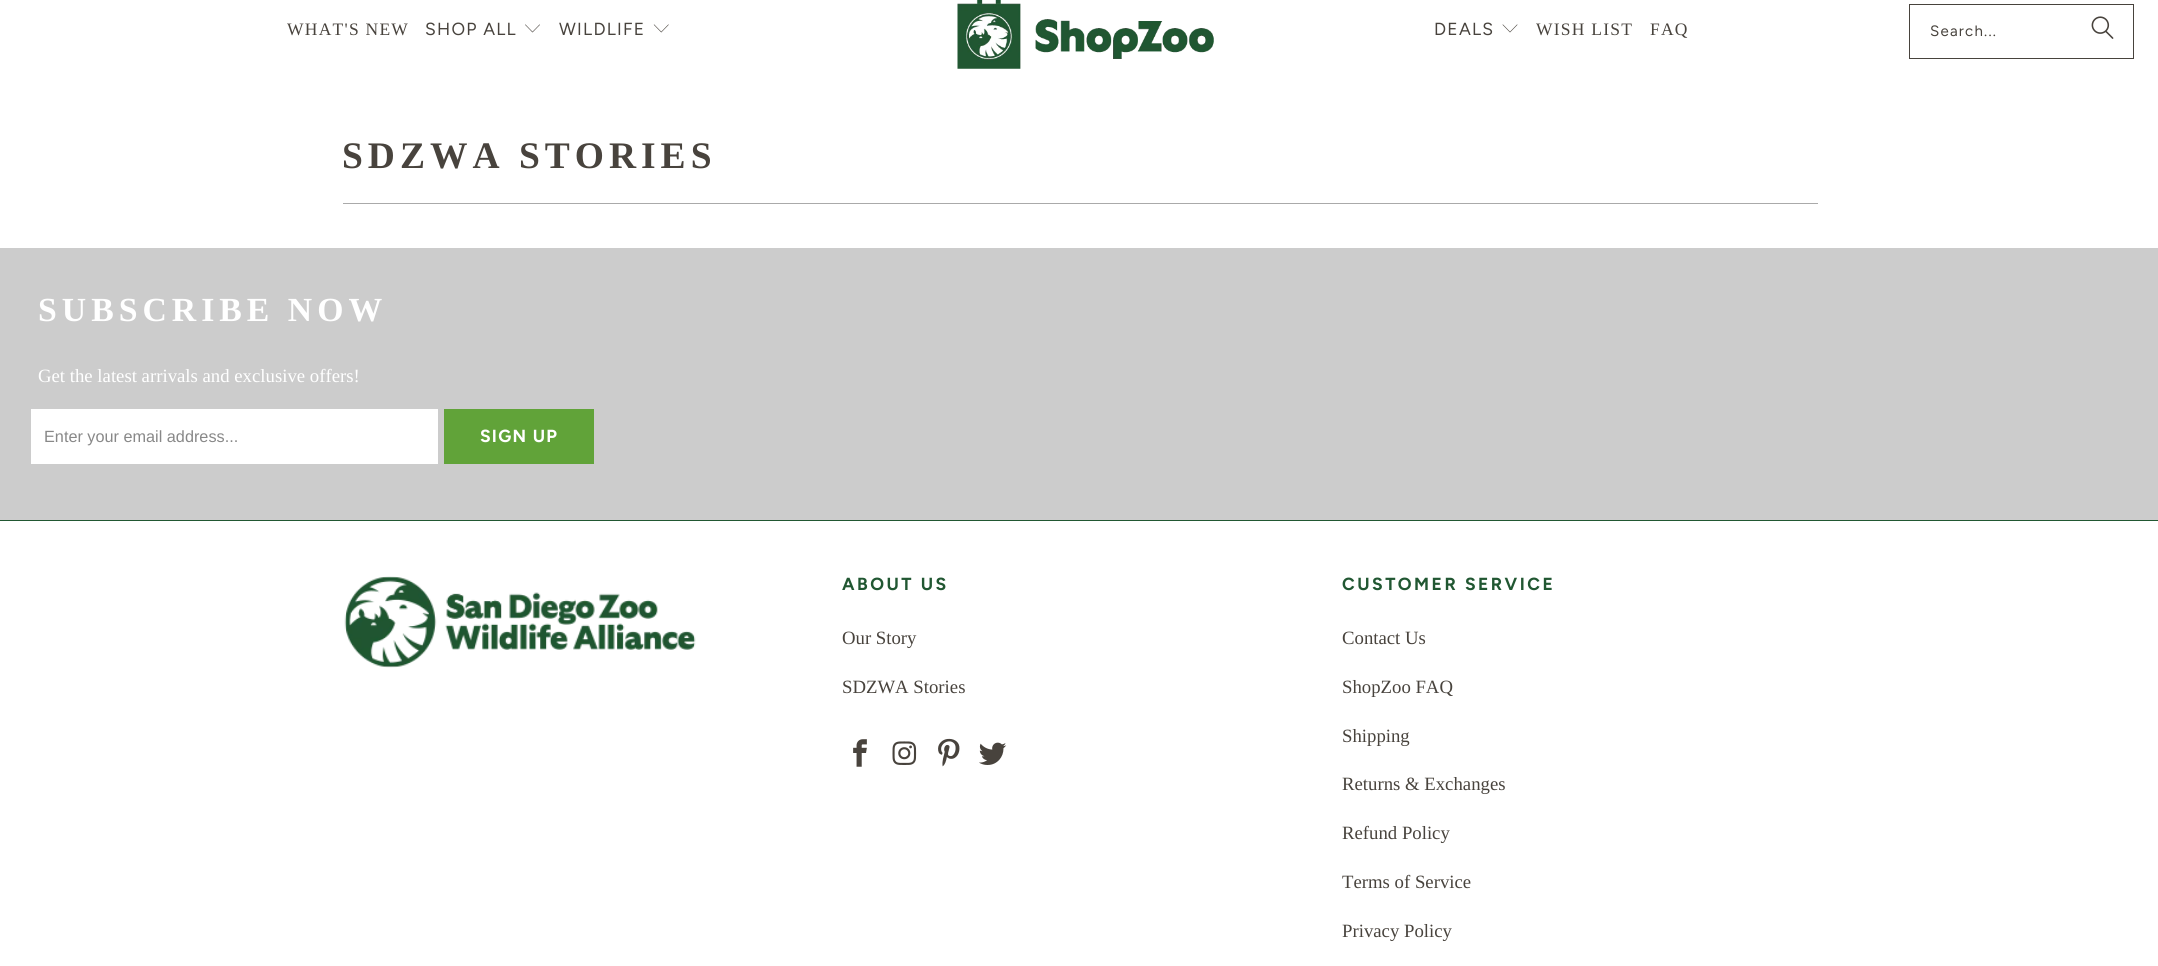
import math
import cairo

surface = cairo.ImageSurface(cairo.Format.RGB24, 2158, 966)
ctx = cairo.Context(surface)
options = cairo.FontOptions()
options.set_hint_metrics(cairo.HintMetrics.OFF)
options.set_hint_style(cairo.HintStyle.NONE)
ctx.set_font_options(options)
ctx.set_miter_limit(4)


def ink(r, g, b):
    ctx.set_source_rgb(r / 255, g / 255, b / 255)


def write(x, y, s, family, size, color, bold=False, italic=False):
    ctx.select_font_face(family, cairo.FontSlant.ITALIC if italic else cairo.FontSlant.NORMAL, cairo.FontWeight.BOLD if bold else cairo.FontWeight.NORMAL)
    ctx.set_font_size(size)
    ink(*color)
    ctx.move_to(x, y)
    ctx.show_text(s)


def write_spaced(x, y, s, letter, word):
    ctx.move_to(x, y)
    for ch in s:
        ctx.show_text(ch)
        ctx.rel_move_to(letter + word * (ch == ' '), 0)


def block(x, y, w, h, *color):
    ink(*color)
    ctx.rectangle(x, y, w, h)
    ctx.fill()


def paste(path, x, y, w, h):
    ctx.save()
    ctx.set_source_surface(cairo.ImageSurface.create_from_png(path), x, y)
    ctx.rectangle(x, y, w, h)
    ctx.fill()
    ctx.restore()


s1 = dict(family="Liberation Serif", size=18.75, color=(255, 255, 255))
s2 = dict(family="Liberation Sans", size=16.25, color=(136, 136, 136))
s3 = dict(family="Liberation Serif", size=18.75, color=(72, 67, 61))

ink(255, 255, 255)
ctx.paint()
ctx.select_font_face("Liberation Serif")
ctx.set_font_size(17.5)
ink(72, 67, 61)
write_spaced(287, 35, "WHAT'S NEW", 1.25, 0)
ctx.select_font_face("Figtree")
write_spaced(425, 35, "SHOP ALL", 1.25, 0)
paste("pic1.png", 525, 24, 15, 9)
write_spaced(559, 35, "WILDLIFE", 1.25, 0)
paste("pic2.png", 653, 24, 16, 9)
paste("pic3.png", 957, 0, 257, 69)
write_spaced(1434, 35, "DEALS", 1.25, 0)
paste("pic4.png", 1502, 24, 16, 9)
ctx.select_font_face("Liberation Serif")
write_spaced(1536, 35, "WISH LIST", 1.25, 0)
write_spaced(1650, 35, "FAQ", 1.25, 0)
ctx.rectangle(1909.5, 4.5, 224, 54)
ctx.set_line_width(1)
ctx.stroke()
ctx.select_font_face("Figtree")
ctx.set_font_size(15)
write_spaced(1930, 36, "Search...", 1.25, 0)
paste("pic5.png", 2091, 16, 23, 23)
ctx.select_font_face("Liberation Serif", cairo.FontSlant.NORMAL, cairo.FontWeight.BOLD)
ctx.set_font_size(37.5)
write_spaced(342, 168, "SDZWA STORIES", 5, 0)
block(343, 203, 1475, 1, 170, 170, 170)
block(0, 248, 2158, 272, 204, 204, 204)
ctx.set_font_size(33.75)
ink(255, 255, 255)
write_spaced(38, 321, "SUBSCRIBE NOW", 5, 0)
write(38, 382, "Get the latest arrivals and exclusive offers!", **s1)
block(31, 409, 407, 55, 255, 255, 255)
write(44, 442, "Enter your email address...", **s2)
block(444, 409, 150, 55, 97, 163, 57)
ctx.select_font_face("Figtree", cairo.FontSlant.NORMAL, cairo.FontWeight.BOLD)
ctx.set_font_size(17.5)
ink(255, 255, 255)
write_spaced(480, 442, "SIGN UP", 1.25, 0)
block(0, 520, 2158, 1, 33, 87, 50)
paste("pic6.png", 344, 576, 352, 92)
write_spaced(842, 590, "ABOUT US", 2.5, 0)
write(842, 644, "Our Story", **s3)
write(842, 693, "SDZWA Stories", **s3)
paste("pic7.png", 853, 739, 14, 28)
paste("pic8.png", 892, 741, 25, 24)
paste("pic9.png", 938, 738, 22, 29)
paste("pic10.png", 979, 742, 28, 23)
ctx.select_font_face("Figtree", cairo.FontSlant.NORMAL, cairo.FontWeight.BOLD)
ctx.set_font_size(17.5)
ink(33, 87, 50)
write_spaced(1342, 590, "CUSTOMER SERVICE", 2.5, 0)
write(1342, 644, "Contact Us", **s3)
write(1342, 693, "ShopZoo FAQ", **s3)
write(1342, 742, "Shipping", **s3)
write(1342, 790, "Returns & Exchanges", **s3)
write(1342, 839, "Refund Policy", **s3)
write(1342, 888, "Terms of Service", **s3)
write(1342, 937, "Privacy Policy", **s3)
surface.write_to_png("screenshot.png")
